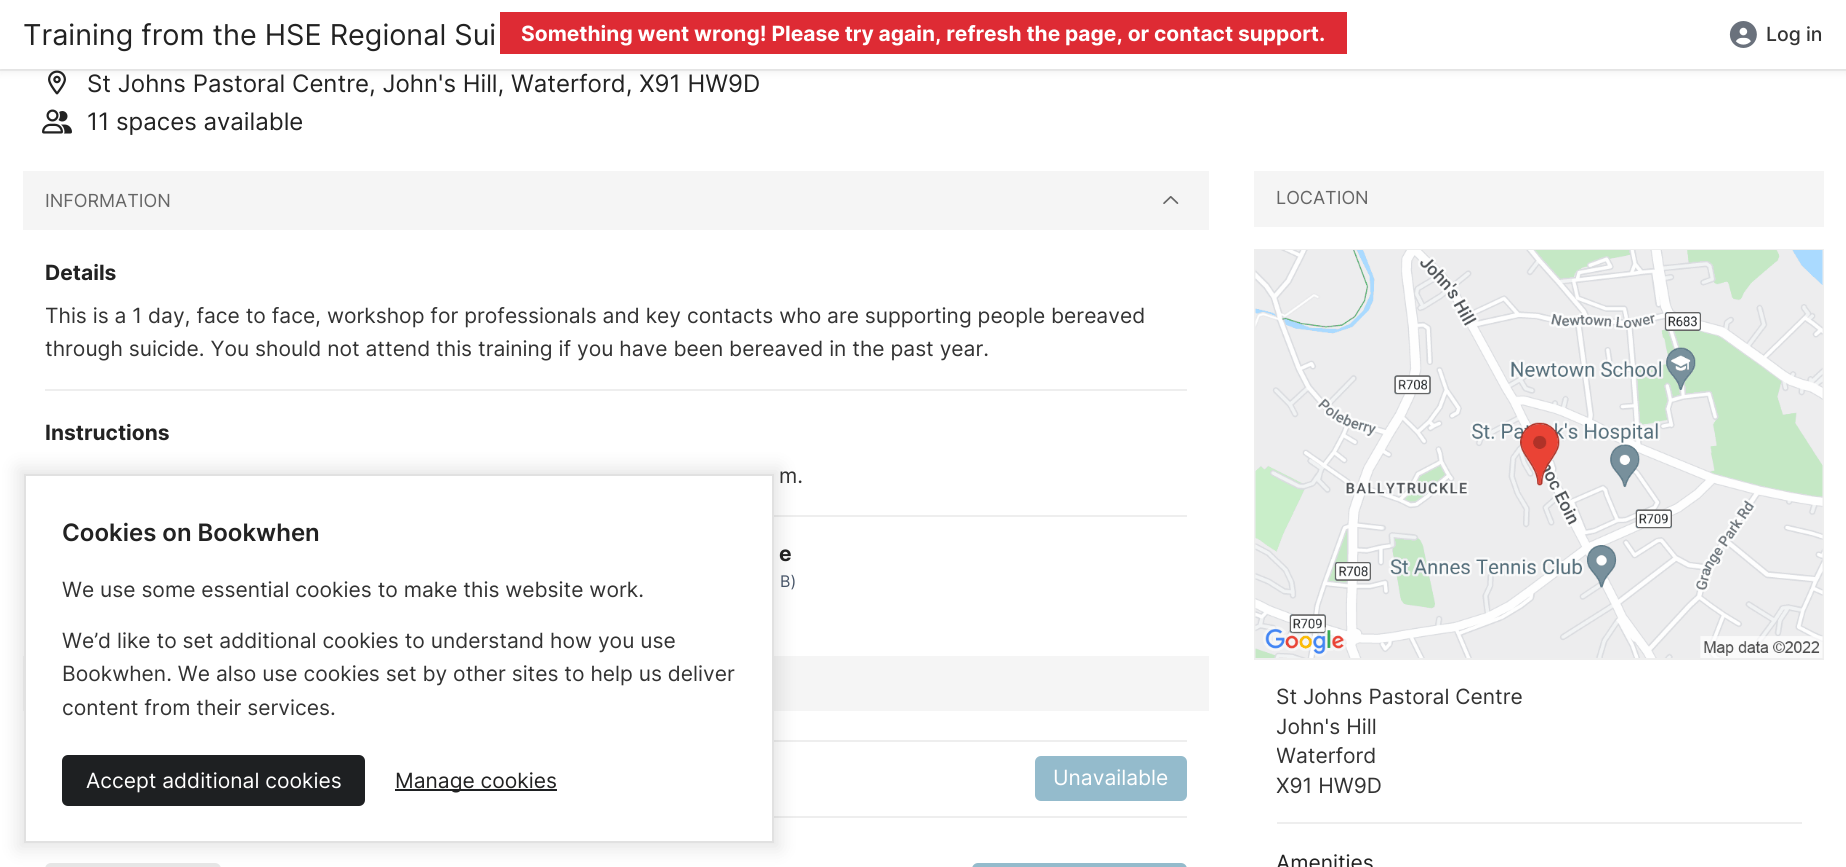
import math
import cairo

surface = cairo.ImageSurface(cairo.Format.RGB24, 1846, 867)
ctx = cairo.Context(surface)
options = cairo.FontOptions()
options.set_hint_metrics(cairo.HintMetrics.OFF)
options.set_hint_style(cairo.HintStyle.NONE)
ctx.set_font_options(options)
ctx.set_miter_limit(4)


def ink(r, g, b):
    ctx.set_source_rgb(r / 255, g / 255, b / 255)


def write(x, y, s, family, size, color, bold=False, italic=False):
    ctx.select_font_face(family, cairo.FontSlant.ITALIC if italic else cairo.FontSlant.NORMAL, cairo.FontWeight.BOLD if bold else cairo.FontWeight.NORMAL)
    ctx.set_font_size(size)
    ink(*color)
    ctx.move_to(x, y)
    ctx.show_text(s)


def block(x, y, w, h, *color):
    ink(*color)
    ctx.rectangle(x, y, w, h)
    ctx.fill()


def round_path(x, y, w, h, r):
    ctx.new_sub_path()
    for i, (u, v) in enumerate([(x + w - r, y + h - r), (x + r, y + h - r), (x + r, y + r), (x + w - r, y + r)]):
        ctx.arc(u, v, r, i * math.pi / 2, (i + 1) * math.pi / 2)
    ctx.close_path()


def blur_box(x, y, w, h, r, blur, alpha):
    ctx.push_group_with_content(cairo.Content.ALPHA)
    ctx.set_operator(cairo.Operator.SOURCE)
    for i in range(15, -16, -2):
        e = blur * i / 6
        if min(w, h) + 2 * e > 0:
            ctx.set_source_rgba(0, 0, 0, alpha * math.erfc((i - 1) / 8.5) / 2)
            round_path(x - e, y - e, w + 2 * e, h + 2 * e, max(0, min(r + e + blur * .6, min(w, h) / 2 + e)))
            ctx.fill()
    ctx.mask(ctx.pop_group())


def paste(path, x, y, w, h):
    ctx.save()
    ctx.set_source_surface(cairo.ImageSurface.create_from_png(path), x, y)
    ctx.rectangle(x, y, w, h)
    ctx.fill()
    ctx.restore()


s1 = dict(family="Inter", size=28.75, color=(34, 34, 34))
s2 = dict(family="Inter Medium", size=19.5, color=(51, 51, 51))
s3 = dict(family="Inter", size=21, color=(255, 255, 255), bold=True)
s4 = dict(family="Inter", size=24, color=(34, 34, 34))
s5 = dict(family="Inter", size=18, color=(102, 102, 102))
s6 = dict(family="Inter", size=21, color=(34, 34, 34), bold=True)
s7 = dict(family="Inter", size=21, color=(51, 51, 51))
s8 = dict(family="Inter", size=16, color=(71, 85, 105))
s9 = dict(family="Inter", size=21, color=(255, 255, 255))
s10 = dict(family="Inter", size=21, color=(34, 34, 34))
s11 = dict(family="Inter SemiBold", size=24, color=(34, 34, 34))

ink(255, 255, 255)
ctx.paint()
paste("pic2.png", 48, 70, 18, 25)
ink(50, 50, 50)
blur_box(0, 2, 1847, 69, 0, 4.5, 0.1)
ctx.set_source_rgba(0.392, 0.392, 0.392, 0.1)
ctx.new_path()
ctx.move_to(0, 69)
ctx.line_to(0, 71)
ctx.line_to(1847, 71)
ctx.line_to(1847, 2)
ctx.line_to(1846, 2)
ctx.line_to(1846, 69)
ctx.close_path()
ctx.fill()
block(0, 0, 1846, 69, 255, 255, 255)
write(23, 45, "Training from the HSE Regional Sui", **s1)
paste("pic1.png", 1729, 21, 28, 27)
write(1766, 41, "Log in", **s2)
block(500, 12, 847, 42, 222, 43, 52)
write(521, 41, "Something went wrong! Please try again, refresh the page, or contact support.", **s3)
write(87, 92, "St Johns Pastoral Centre, John's Hill, Waterford, X91 HW9D", **s4)
paste("pic3.png", 42, 109, 30, 25)
write(87, 130, "11 spaces available", **s4)
block(23, 171, 1186, 59, 245, 245, 245)
write(45, 207, "INFORMATION", **s5)
paste("pic4.png", 1163, 196, 16, 8)
write(45, 280, "Details", **s6)
write(45, 323, "This is a 1 day, face to face, workshop for professionals and key contacts who are supporting people bereaved", **s7)
write(45, 356, "through suicide. You should not attend this training if you have been bereaved in the past year.", **s7)
block(45, 389, 1142, 2, 238, 238, 238)
write(45, 440, "Instructions", **s6)
write(779, 483, "m.", **s7)
block(774, 515, 413, 2, 238, 238, 238)
write(779, 561, "e", **s6)
write(780, 587, "B)", **s8)
block(23, 656, 1186, 55, 245, 245, 245)
block(774, 816, 413, 2, 238, 238, 238)
block(774, 740, 413, 2, 238, 238, 238)
ink(148, 187, 204)
round_path(1035, 756, 152, 45, 6)
ctx.fill()
write(1053, 785, "Unavailable", **s9)
ink(231, 231, 231)
round_path(45, 863, 176, 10, 6)
ctx.fill()
ink(148, 187, 204)
round_path(972, 863, 215, 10, 6)
ctx.fill()
block(1254, 171, 570, 56, 245, 245, 245)
write(1276, 204, "LOCATION", **s5)
ctx.rectangle(1255, 250, 568, 409)
ink(238, 238, 238)
ctx.stroke()
paste("pic5.png", 1255, 250, 568, 408)
write(1276, 704, "St Johns Pastoral Centre", **s7)
write(1276, 734, "John's Hill", **s7)
ctx.save()
ctx.rectangle(1277, 683, 525, 117)
ctx.clip()
write(1276, 763, "Waterford", **s7)
ctx.restore()
write(1276, 793, "X91 HW9D", **s7)
block(1277, 822, 525, 2, 238, 238, 238)
write(1276, 870, "Amenities", **s10)
ink(0, 0, 0)
blur_box(18, 468, 762, 381, 0, 9, 0.1)
ink(255, 255, 255)
ctx.rectangle(25, 475, 748, 367)
ctx.fill_preserve()
ink(225, 225, 225)
ctx.stroke()
write(62, 541, "Cookies on Bookwhen", **s11)
write(62, 597, "We use some essential cookies to make this website work.", **s7)
write(62, 648, "We’d like to set additional cookies to understand how you use", **s7)
write(62, 681, "Bookwhen. We also use cookies set by other sites to help us deliver", **s7)
write(62, 715, "content from their services.", **s7)
ink(30, 32, 34)
round_path(62, 755, 303, 51, 6)
ctx.fill()
write(86, 788, "Accept additional cookies", **s9)
block(395, 789, 162, 2, 30, 32, 34)
write(395, 788, "Manage cookies", **s10)
surface.write_to_png("screenshot.png")
